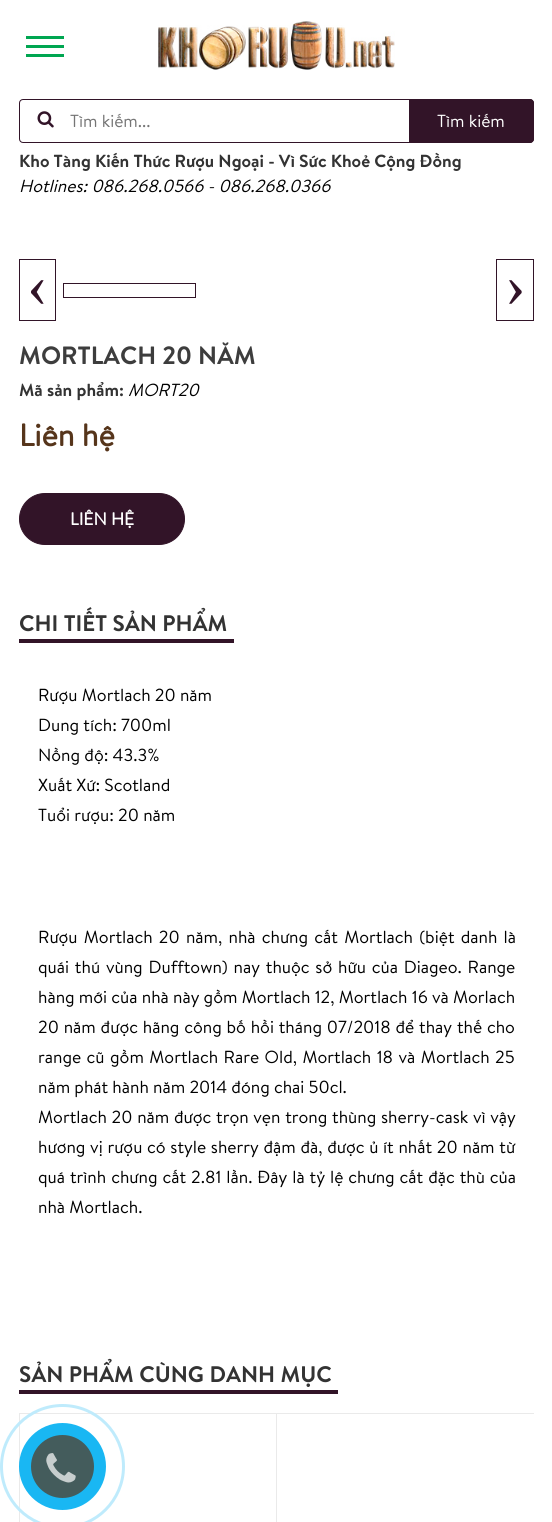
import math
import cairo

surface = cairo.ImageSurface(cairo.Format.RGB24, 552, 1522)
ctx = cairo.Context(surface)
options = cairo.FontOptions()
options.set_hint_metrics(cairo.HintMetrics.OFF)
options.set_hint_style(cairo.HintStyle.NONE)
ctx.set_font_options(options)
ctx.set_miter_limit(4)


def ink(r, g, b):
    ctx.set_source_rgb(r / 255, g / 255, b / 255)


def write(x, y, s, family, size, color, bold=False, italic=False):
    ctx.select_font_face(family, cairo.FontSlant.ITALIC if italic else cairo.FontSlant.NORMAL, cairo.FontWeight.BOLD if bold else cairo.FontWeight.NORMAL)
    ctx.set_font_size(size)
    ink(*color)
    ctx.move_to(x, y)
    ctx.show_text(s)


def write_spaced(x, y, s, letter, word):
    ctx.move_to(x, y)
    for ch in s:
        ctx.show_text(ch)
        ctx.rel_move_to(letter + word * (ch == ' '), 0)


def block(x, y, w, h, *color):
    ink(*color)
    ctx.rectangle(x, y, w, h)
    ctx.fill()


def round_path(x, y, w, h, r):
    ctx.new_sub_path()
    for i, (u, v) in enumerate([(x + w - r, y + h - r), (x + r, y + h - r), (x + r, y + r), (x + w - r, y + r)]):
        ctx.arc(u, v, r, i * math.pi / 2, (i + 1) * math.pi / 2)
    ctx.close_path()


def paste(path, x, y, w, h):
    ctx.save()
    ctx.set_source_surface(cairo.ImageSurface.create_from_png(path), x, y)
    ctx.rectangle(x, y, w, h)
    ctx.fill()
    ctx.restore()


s1 = dict(family="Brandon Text", size=17.5, color=(117, 117, 117))
s2 = dict(family="Brandon Text", size=17.5, color=(255, 255, 255))
s3 = dict(family="Brandon Text", size=17.5, color=(51, 51, 51), bold=True)
s4 = dict(family="Brandon Text", size=17.5, color=(0, 0, 0), italic=True)
s5 = dict(family="Liberation Serif", size=62, color=(50, 20, 40))
s6 = dict(family="Brandon Text", size=25, color=(61, 61, 61), bold=True)
s7 = dict(family="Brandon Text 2", size=31, color=(86, 53, 27), bold=True)
s8 = dict(family="Brandon Text 2", size=17.5, color=(255, 255, 255), bold=True)
s9 = dict(family="Brandon Text", size=22.5, color=(51, 51, 51), bold=True)
s10 = dict(family="Brandon Text", size=17.5, color=(0, 0, 0))

ink(255, 255, 255)
ctx.paint()
block(26, 45, 38, 3, 0, 166, 81)
block(26, 36, 38, 3, 0, 166, 81)
block(26, 54, 38, 3, 0, 166, 81)
paste("pic1.png", 158, 21, 237, 49)
round_path(19.5, 99.5, 514, 43, 3.5)
ink(50, 20, 40)
ctx.set_line_width(1)
ctx.stroke()
paste("pic2.png", 37, 111, 17, 17)
write(70, 127, "Tìm kiếm...", **s1)
ink(50, 20, 40)
ctx.new_path()
ctx.move_to(409, 99)
ctx.line_to(530, 99)
ctx.curve_to(532, 99, 534, 101, 534, 103)
ctx.line_to(534, 139)
ctx.curve_to(534, 141, 532, 143, 530, 143)
ctx.line_to(409, 143)
ctx.close_path()
ctx.fill()
write(437, 127, "Tìm kiếm", **s2)
write(19, 167, "Kho Tàng Kiến Thức Rượu Ngoại - Vì Sức Khoẻ Cộng Đồng", **s3)
write(19, 192, "Hotlines: 086.268.0566 - 086.268.0366", **s4)
ctx.rectangle(19.5, 259.5, 36, 61)
ink(50, 20, 40)
ctx.stroke()
write(27, 306, "‹", **s5)
ctx.rectangle(496.5, 259.5, 37, 61)
ctx.stroke()
write(505, 306, "›", **s5)
ctx.rectangle(63.5, 283.5, 132, 14)
ctx.stroke()
write(19, 364, "MORTLACH 20 NĂM", **s6)
write(19, 396, "Mã sản phẩm:", **s3)
write(128, 396, "MORT20", **s4)
write(19, 446, "Liên hệ", **s7)
ink(50, 20, 40)
round_path(19.5, 493.5, 165, 51, 25.5)
ctx.fill_preserve()
ctx.stroke()
write(70, 525, "LIÊN HỆ", **s8)
block(19, 639, 215, 4, 50, 20, 40)
write(19, 631, "CHI TIẾT SẢN PHẨM", **s9)
write(38, 701, "Rượu Mortlach 20 năm", **s10)
write(38, 731, "Dung tích: 700ml", **s10)
write(38, 761, "Nồng độ: 43.3%", **s10)
write(38, 791, "Xuất Xứ: Scotland", **s10)
write(38, 821, "Tuổi rượu: 20 năm", **s10)
write_spaced(38, 943, "Rượu Mortlach 20 năm, nhà chưng cất Mortlach (biệt danh là", 0, 2)
write_spaced(38, 973, "quái thú vùng Dufftown) nay thuộc sở hữu của Diageo. Range", 0, 1.6)
write(38, 1003, "hàng mới của nhà này gồm Mortlach 12, Mortlach 16 và Morlach", **s10)
write_spaced(38, 1033, "20 năm được hãng công bố hồi tháng 07/2018 để thay thế cho", 0, 0.6)
write_spaced(38, 1063, "range cũ gồm Mortlach Rare Old, Mortlach 18 và Mortlach 25", 0, 1.25)
write(38, 1093, "năm phát hành năm 2014 đóng chai 50cl.", **s10)
write_spaced(38, 1123, "Mortlach 20 năm được trọn vẹn trong thùng sherry-cask vì vậy", 0, 0.5)
write_spaced(38, 1153, "hương vị rượu có style sherry đậm đà, được ủ ít nhất 20 năm từ", 0, 0.5)
write_spaced(38, 1183, "quá trình chưng cất 2.81 lần. Đây là tỷ lệ chưng cất đặc thù của", 0, 0.75)
write(38, 1213, "nhà Mortlach.", **s10)
block(19, 1390, 319, 4, 50, 20, 40)
write(19, 1382, "SẢN PHẨM CÙNG DANH MỤC", **s9)
block(19, 1413, 515, 1, 234, 234, 234)
block(19, 1413, 1, 109, 234, 234, 234)
block(276, 1413, 1, 109, 234, 234, 234)
ctx.new_path()
ctx.arc(62.5, 1466.5, 61, 0, 2 * math.pi)
ink(191, 235, 252)
ctx.set_line_width(3)
ctx.stroke()
ctx.set_source_rgba(0, 0.686, 0.949, 0.9)
ctx.arc(62.5, 1466.5, 43.5, 0, 2 * math.pi)
ctx.fill()
ink(68, 92, 92)
ctx.arc(62.5, 1466.5, 31.5, 0, 2 * math.pi)
ctx.fill()
paste("pic3.png", 46, 1453, 30, 30)
surface.write_to_png("screenshot.png")
